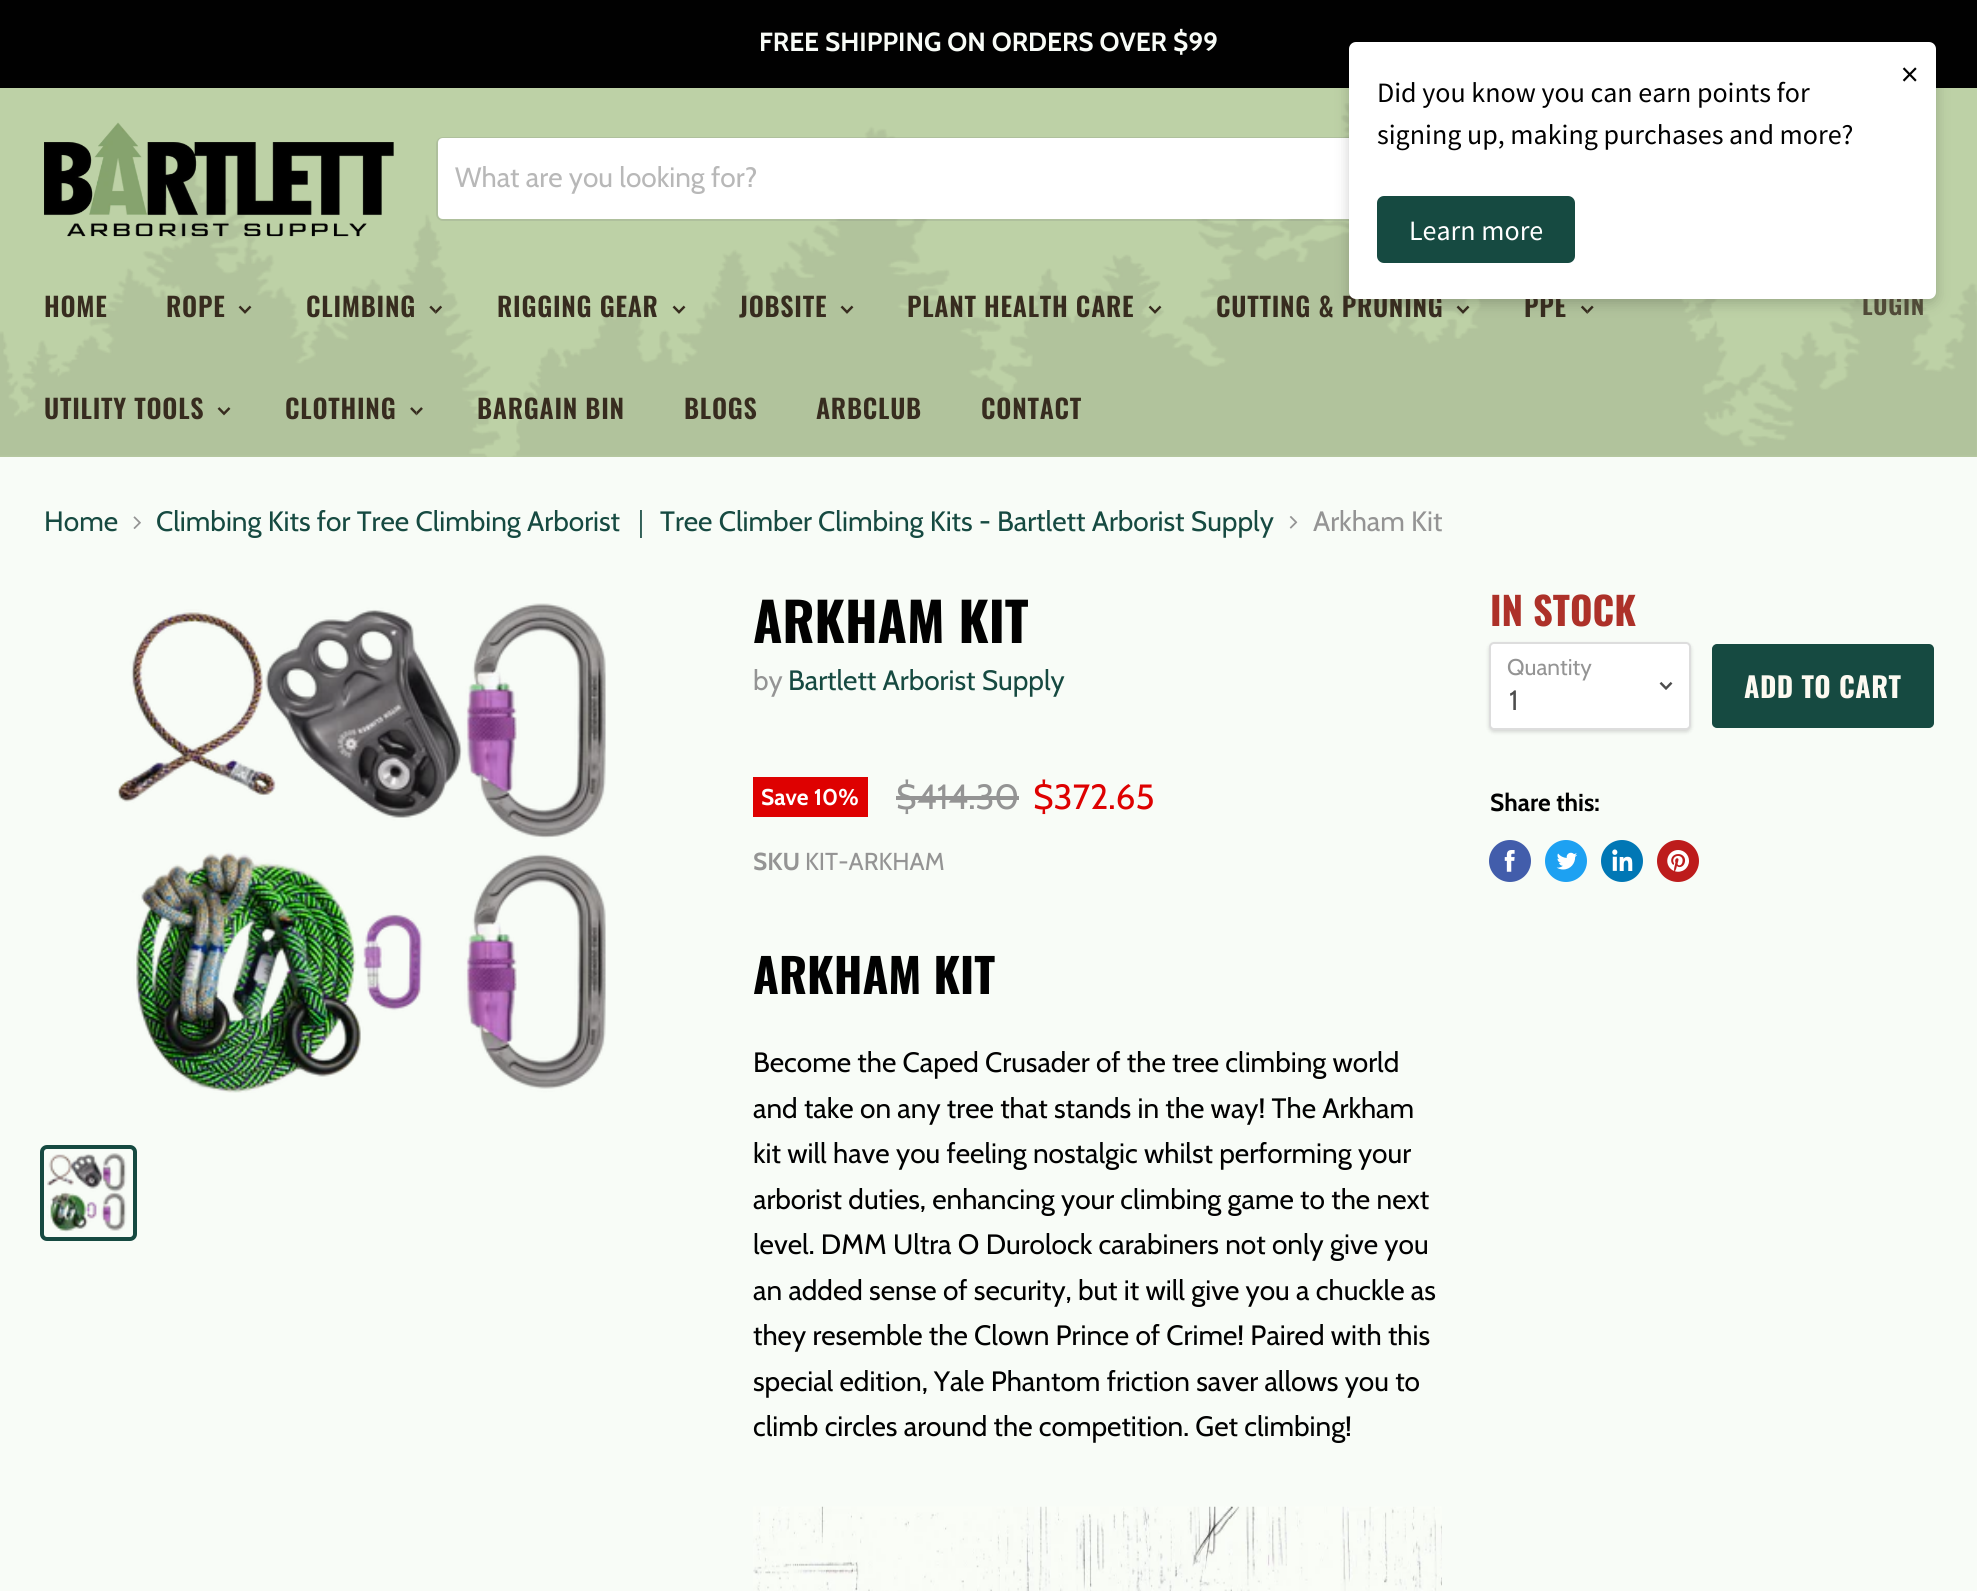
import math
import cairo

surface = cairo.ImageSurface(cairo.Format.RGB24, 1977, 1591)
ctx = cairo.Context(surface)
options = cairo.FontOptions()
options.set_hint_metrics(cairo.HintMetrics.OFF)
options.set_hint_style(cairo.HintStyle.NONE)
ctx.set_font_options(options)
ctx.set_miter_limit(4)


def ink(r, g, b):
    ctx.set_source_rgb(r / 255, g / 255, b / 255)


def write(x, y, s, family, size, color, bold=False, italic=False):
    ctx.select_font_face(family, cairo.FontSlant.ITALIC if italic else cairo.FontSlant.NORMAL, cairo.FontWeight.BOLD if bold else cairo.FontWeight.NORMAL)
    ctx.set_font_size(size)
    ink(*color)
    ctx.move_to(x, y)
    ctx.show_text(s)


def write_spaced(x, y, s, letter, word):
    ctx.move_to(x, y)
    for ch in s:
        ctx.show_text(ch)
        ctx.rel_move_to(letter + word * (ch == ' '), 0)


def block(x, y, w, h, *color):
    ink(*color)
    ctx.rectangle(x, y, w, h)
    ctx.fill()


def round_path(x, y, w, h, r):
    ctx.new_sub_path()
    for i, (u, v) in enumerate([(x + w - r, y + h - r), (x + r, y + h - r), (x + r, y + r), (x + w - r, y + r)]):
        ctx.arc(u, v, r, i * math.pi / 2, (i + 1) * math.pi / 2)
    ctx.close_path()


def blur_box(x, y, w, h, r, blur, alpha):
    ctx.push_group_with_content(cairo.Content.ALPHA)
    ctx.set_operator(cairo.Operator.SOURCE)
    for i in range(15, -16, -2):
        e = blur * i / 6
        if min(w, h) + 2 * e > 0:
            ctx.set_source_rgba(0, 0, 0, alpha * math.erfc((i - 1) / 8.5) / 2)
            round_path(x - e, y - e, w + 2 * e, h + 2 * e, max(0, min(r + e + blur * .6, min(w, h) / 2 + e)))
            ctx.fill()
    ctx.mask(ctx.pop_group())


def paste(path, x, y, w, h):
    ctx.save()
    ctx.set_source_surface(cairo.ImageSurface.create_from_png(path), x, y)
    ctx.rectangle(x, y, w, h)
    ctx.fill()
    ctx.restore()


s1 = dict(family="Cabin", size=26.25, color=(248, 252, 247), bold=True)
s2 = dict(family="Source Sans Pro", size=35, color=(1, 1, 1))
s3 = dict(family="Source Sans Pro", size=28, color=(1, 1, 1))
s4 = dict(family="Source Sans Pro", size=28, color=(255, 255, 255))
s5 = dict(family="Cabin", size=28, color=(184, 184, 184))
s6 = dict(family="Cabin", size=28, color=(22, 74, 65))
s7 = dict(family="WenQuanYi Zen Hei Medium", size=28, color=(22, 74, 65))
s8 = dict(family="Cabin", size=28, color=(148, 148, 148))
s9 = dict(family="Oswald", size=53.5, color=(1, 1, 1), bold=True)
s10 = dict(family="Cabin", size=22.75, color=(255, 255, 255), bold=True)
s11 = dict(family="Cabin", size=35, color=(148, 148, 148))
s12 = dict(family="Cabin", size=35, color=(222, 1, 1))
s13 = dict(family="Cabin", size=24.5, color=(148, 148, 148), bold=True)
s14 = dict(family="Cabin", size=24.5, color=(148, 148, 148))
s15 = dict(family="Oswald", size=47, color=(1, 1, 1), bold=True)
s16 = dict(family="Cabin", size=28, color=(1, 1, 1))
s17 = dict(family="Oswald", size=38.5, color=(173, 49, 41), bold=True)
s18 = dict(family="Cabin", size=22.75, color=(148, 148, 148))
s19 = dict(family="Cabin", size=28, color=(77, 77, 77))
s20 = dict(family="Cabin", size=24.5, color=(1, 1, 1), bold=True)

ink(248, 252, 247)
ctx.paint()
block(0, 0, 1977, 88, 1, 1, 1)
write(759, 51, "FREE SHIPPING ON ORDERS OVER $99", **s1)
block(0, 88, 1977, 369, 189, 209, 166)
paste("pic1.png", 0, 103, 1977, 354)
round_path(437, 138, 1279, 82, 6)
ctx.set_source_rgba(0.486, 0.494, 0.482, 0.2)
ctx.stroke()
ink(255, 255, 255)
ctx.new_path()
ctx.move_to(443, 138)
ctx.line_to(1622, 138)
ctx.line_to(1622, 219)
ctx.line_to(443, 219)
ctx.curve_to(440, 219, 438, 217, 438, 214)
ctx.line_to(438, 143)
ctx.curve_to(438, 140, 440, 138, 443, 138)
ctx.close_path()
ctx.fill()
paste("pic7.png", 1456, 305, 14, 9)
paste("pic8.png", 1580, 305, 14, 9)
ink(0, 0, 0)
blur_box(1349, 46, 587, 257, 7, 7, 0.2)
ctx.select_font_face("Oswald SemiBold")
ink(55, 44, 31)
write_spaced(1216, 317, "CUTTING & PRUNING", 0.75, 0)
write_spaced(1524, 317, "PPE", 0.75, 0)
ctx.set_font_size(24.5)
ink(80, 74, 56)
write_spaced(1862, 315, "LOGIN", 0.75, 0)
ink(255, 255, 255)
round_path(1349, 42, 587, 257, 7)
ctx.fill()
write(1901, 86, "×", **s2)
write(1377, 102, "Did you know you can earn points for", **s3)
write(1377, 144, "signing up, making purchases and more?", **s3)
ink(22, 74, 65)
round_path(1377, 196, 198, 67, 7)
ctx.fill()
write(1409, 240, "Learn more", **s4)
paste("pic2.png", 44, 122, 350, 115)
write(455, 187, "What are you looking for?", **s5)
ctx.select_font_face("Oswald SemiBold")
ctx.set_font_size(26.25)
ink(55, 44, 31)
write_spaced(44, 317, "HOME", 0.75, 0)
write_spaced(166, 317, "ROPE", 0.75, 0)
paste("pic3.png", 238, 305, 14, 9)
write_spaced(306, 317, "CLIMBING", 0.75, 0)
paste("pic4.png", 429, 305, 14, 9)
write_spaced(497, 317, "RIGGING GEAR", 0.75, 0)
paste("pic5.png", 672, 305, 14, 9)
write_spaced(739, 317, "JOBSITE", 0.75, 0)
paste("pic3.png", 840, 305, 14, 9)
write_spaced(907, 317, "PLANT HEALTH CARE", 0.75, 0)
paste("pic6.png", 1148, 305, 14, 9)
write_spaced(44, 419, "UTILITY TOOLS", 0.75, 0)
paste("pic9.png", 217, 407, 14, 9)
write_spaced(285, 419, "CLOTHING", 0.75, 0)
paste("pic10.png", 410, 407, 13, 9)
write_spaced(477, 419, "BARGAIN BIN", 0.75, 0)
write_spaced(684, 419, "BLOGS", 0.75, 0)
write_spaced(816, 419, "ARBCLUB", 0.75, 0)
write_spaced(981, 419, "CONTACT", 0.75, 0)
write(44, 531, "Home", **s6)
paste("pic11.png", 133, 516, 8, 13)
write(156, 531, "Climbing Kits for Tree Climbing Arborist", **s6)
write(627, 531, "｜", **s7)
write(660, 531, "Tree Climber Climbing Kits - Bartlett Arborist Supply", **s6)
paste("pic12.png", 1289, 516, 9, 13)
write(1313, 531, "Arkham Kit", **s8)
paste("pic13.png", 117, 603, 489, 490)
round_path(42, 1147, 93, 92, 5)
ink(22, 74, 65)
ctx.set_line_width(4)
ctx.stroke()
paste("pic14.png", 47, 1153, 80, 79)
write(753, 643, "ARKHAM KIT", **s9)
write(753, 690, "by", **s8)
write(788, 690, "Bartlett Arborist Supply", **s6)
block(753, 777, 115, 40, 222, 1, 1)
write(761, 805, "Save 10%", **s10)
write(896, 809, "$414.30", **s11)
block(896, 796, 123, 4, 148, 148, 148)
write(1033, 809, "$372.65", **s12)
write(753, 870, "SKU", **s13)
write(805, 870, "KIT-ARKHAM", **s14)
write(753, 994, "ARKHAM KIT", **s15)
write(753, 1072, "Become the Caped Crusader of the tree climbing world", **s16)
write(753, 1118, "and take on any tree that stands in the way! The Arkham", **s16)
write(753, 1163, "kit will have you feeling nostalgic whilst performing your", **s16)
write(753, 1209, "arborist duties, enhancing your climbing game to the next", **s16)
write(753, 1254, "level. DMM Ultra O Durolock carabiners not only give you", **s16)
write(753, 1300, "an added sense of security, but it will give you a chuckle as", **s16)
write(753, 1345, "they resemble the Clown Prince of Crime! Paired with this", **s16)
write(753, 1391, "special edition, Yale Phantom friction saver allows you to", **s16)
write(753, 1436, "climb circles around the competition. Get climbing!", **s16)
paste("pic15.png", 753, 1506, 689, 85)
write(1490, 626, "IN STOCK", **s17)
ink(0, 0, 0)
blur_box(1489, 644, 202, 88, 5, 2, 0.15)
ink(255, 255, 255)
round_path(1490, 643, 200, 86, 4)
ctx.fill_preserve()
ink(221, 221, 221)
ctx.set_line_width(2)
ctx.stroke()
write(1507, 675, "Quantity", **s18)
paste("pic16.png", 1659, 681, 14, 9)
write(1509, 710, "1", **s19)
ink(22, 74, 65)
round_path(1713, 645, 220, 82, 4)
ctx.fill_preserve()
ctx.stroke()
ctx.select_font_face("Oswald", cairo.FontSlant.NORMAL, cairo.FontWeight.BOLD)
ink(253, 250, 241)
write_spaced(1744, 698, "ADD TO CART", 0.5, 0)
write(1490, 811, "Share this:", **s20)
ink(66, 93, 171)
ctx.new_path()
ctx.arc(1510, 861, 21, 0, 2 * math.pi)
ctx.fill()
paste("pic17.png", 1504, 850, 11, 22)
ink(29, 161, 242)
ctx.arc(1566, 861, 21, 0, 2 * math.pi)
ctx.fill()
paste("pic18.png", 1556, 852, 22, 18)
ink(0, 119, 181)
ctx.arc(1622, 861, 21, 0, 2 * math.pi)
ctx.fill()
paste("pic19.png", 1612, 849, 21, 22)
ink(189, 28, 28)
ctx.arc(1678, 861, 21, 0, 2 * math.pi)
ctx.fill()
paste("pic20.png", 1667, 850, 22, 22)
surface.write_to_png("screenshot.png")
